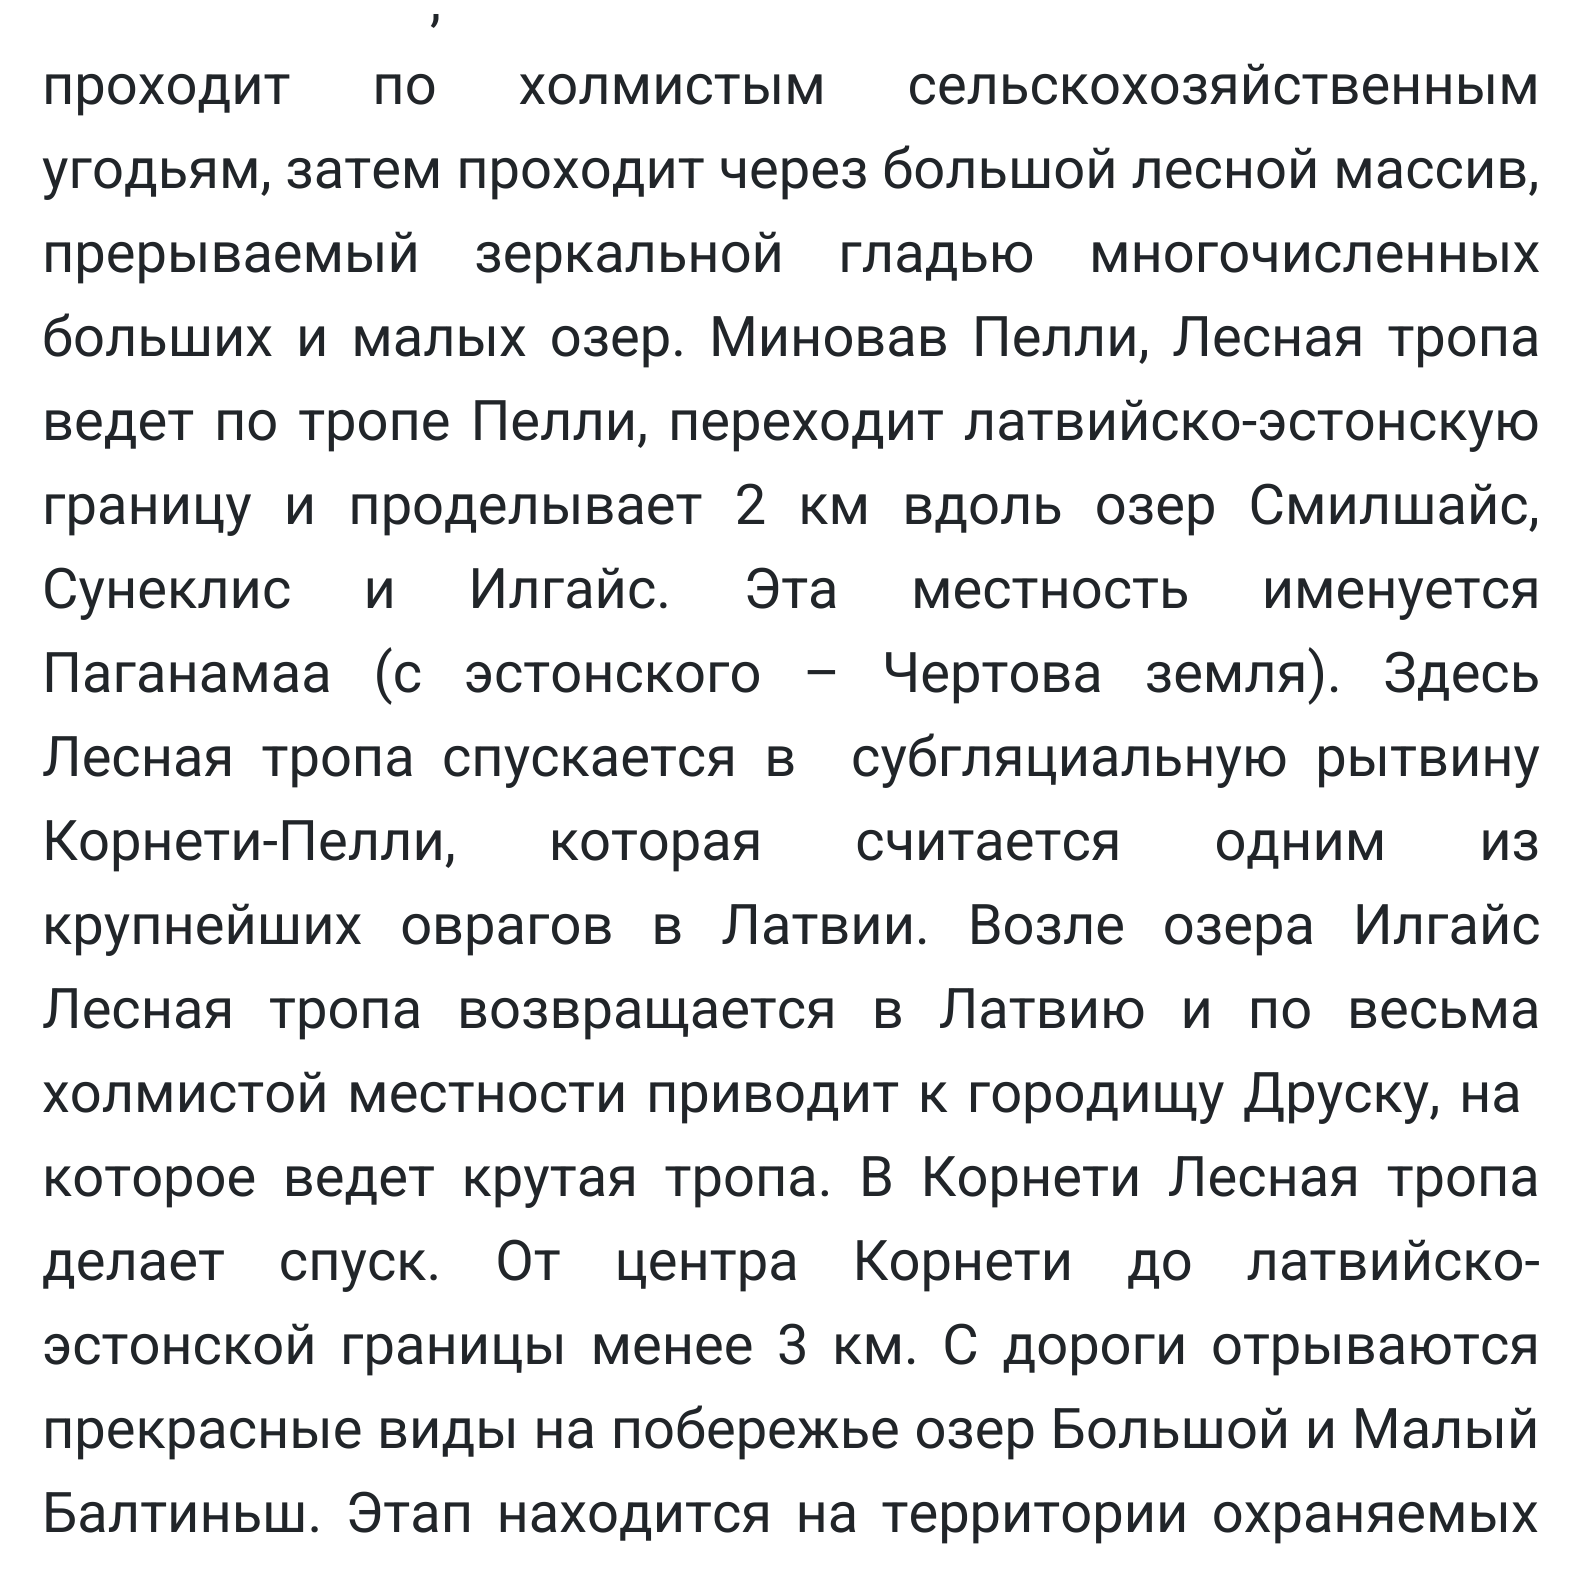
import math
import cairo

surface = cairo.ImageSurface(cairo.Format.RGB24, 1582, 1595)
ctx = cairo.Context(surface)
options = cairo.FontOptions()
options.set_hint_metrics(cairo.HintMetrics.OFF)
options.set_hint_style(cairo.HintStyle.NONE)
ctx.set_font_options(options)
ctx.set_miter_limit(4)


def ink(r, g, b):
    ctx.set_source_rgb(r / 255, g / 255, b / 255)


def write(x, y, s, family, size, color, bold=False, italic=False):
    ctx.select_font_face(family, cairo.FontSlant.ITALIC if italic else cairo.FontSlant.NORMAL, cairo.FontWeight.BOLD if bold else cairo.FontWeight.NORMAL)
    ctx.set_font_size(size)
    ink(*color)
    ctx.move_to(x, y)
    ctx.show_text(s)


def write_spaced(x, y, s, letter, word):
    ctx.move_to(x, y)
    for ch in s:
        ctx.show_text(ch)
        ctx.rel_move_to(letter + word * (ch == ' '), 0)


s1 = dict(family="Roboto", size=56, color=(33, 37, 41))

ink(255, 255, 255)
ctx.paint()
ctx.select_font_face("Roboto")
ctx.set_font_size(56)
ink(33, 37, 41)
write_spaced(430, 20, ",", 0, 50)
write_spaced(42, 104, "проходит по холмистым сельскохозяйственным", 0, 68)
write(42, 188, "угодьям, затем проходит через большой лесной массив,", **s1)
write_spaced(42, 272, "прерываемый зеркальной гладью многочисленных", 0, 40.5)
write_spaced(42, 356, "больших и малых озер. Миновав Пелли, Лесная тропа", 0, 9)
write_spaced(42, 440, "ведет по тропе Пелли, переходит латвийско-эстонскую", 0, 6)
write_spaced(42, 524, "границу и проделывает 2 км вдоль озер Смилшайс,", 0, 18.25)
write_spaced(42, 608, "Сунеклис и Илгайс. Эта местность именуется", 0, 58.5)
write_spaced(42, 692, "Паганамаа (с эстонского – Чертова земля). Здесь", 0, 28)
write_spaced(42, 776, "Лесная тропа спускается в  субгляциальную рытвину", 0, 13.5)
write_spaced(42, 860, "Корнети-Пелли, которая считается одним из", 0, 79)
write_spaced(42, 944, "крупнейших оврагов в Латвии. Возле озера Илгайс", 0, 24)
write_spaced(42, 1028, "Лесная тропа возвращается в Латвию и по весьма", 0, 21)
write_spaced(42, 1112, "холмистой местности приводит к городищу Друску, на", 0, 4.75)
write_spaced(42, 1196, "которое ведет крутая тропа. В Корнети Лесная тропа", 0, 12.75)
write_spaced(42, 1280, "делает спуск. От центра Корнети до латвийско-", 0, 40)
write_spaced(42, 1364, "эстонской границы менее 3 км. С дороги отрываются", 0, 9.75)
write_spaced(42, 1448, "прекрасные виды на побережье озер Большой и Малый", 0, 0.75)
write_spaced(42, 1532, "Балтиньш. Этап находится на территории охраняемых", 0, 9.5)
surface.write_to_png("screenshot.png")
